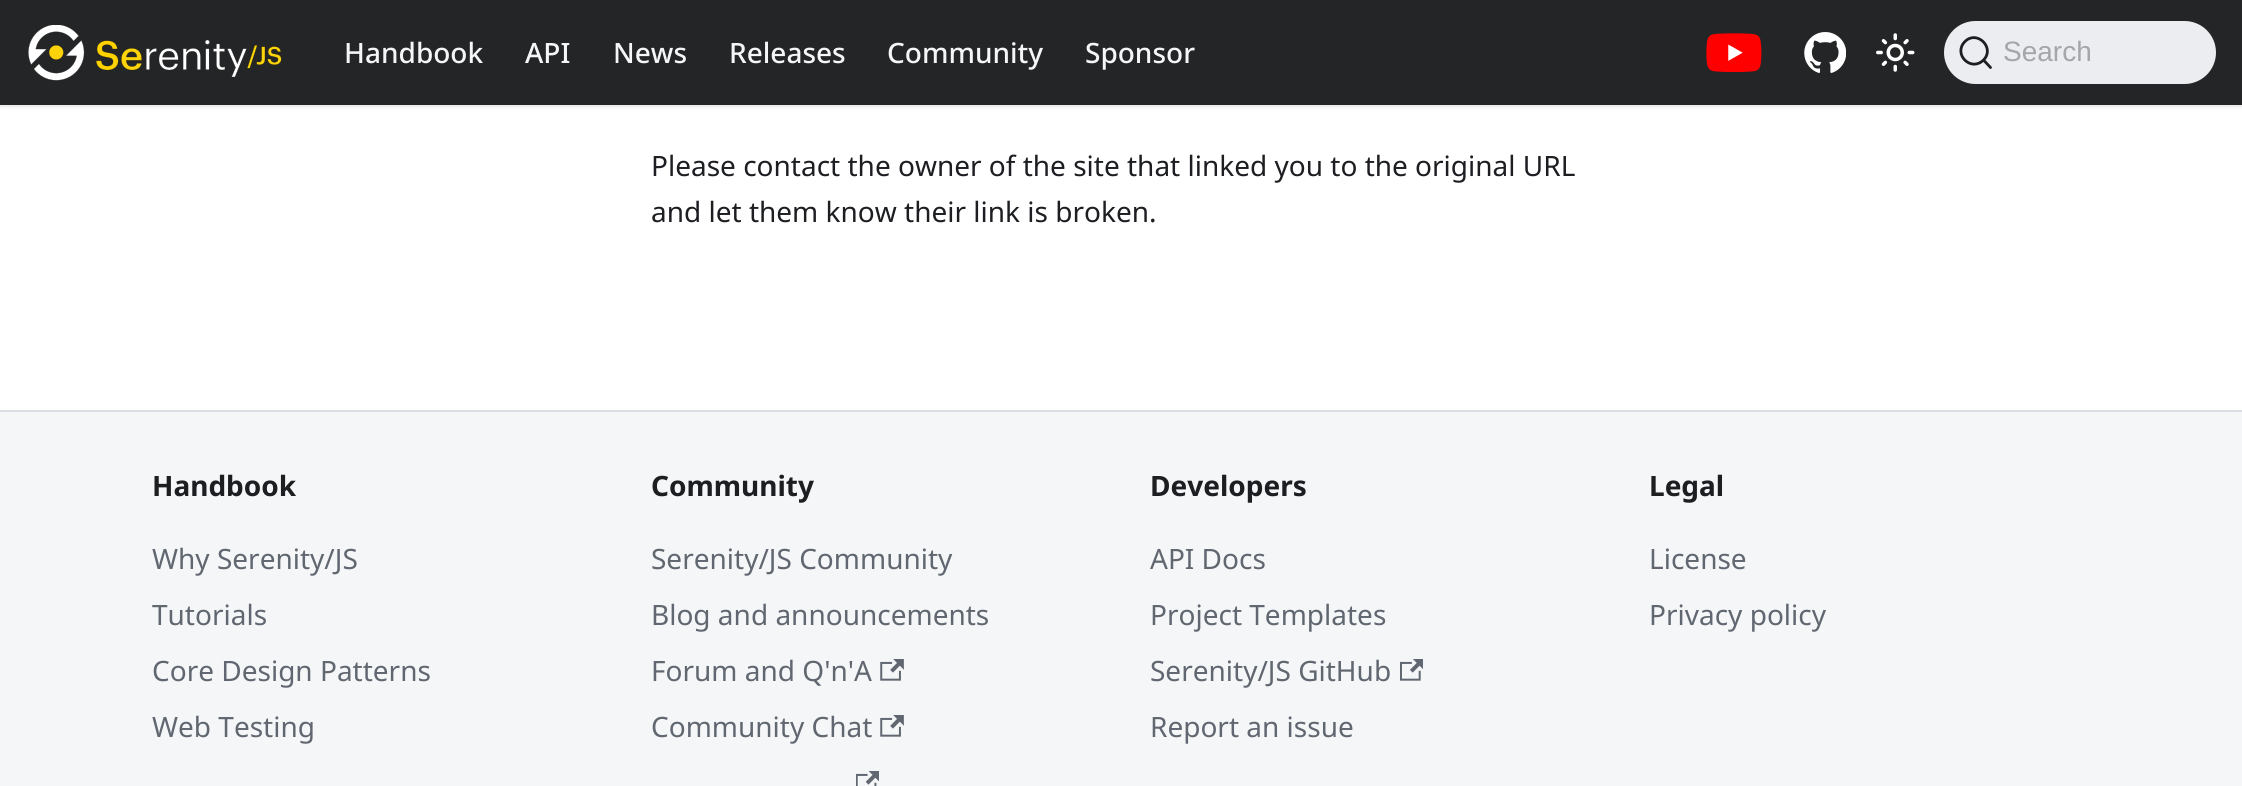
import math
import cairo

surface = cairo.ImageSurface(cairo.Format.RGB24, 2242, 786)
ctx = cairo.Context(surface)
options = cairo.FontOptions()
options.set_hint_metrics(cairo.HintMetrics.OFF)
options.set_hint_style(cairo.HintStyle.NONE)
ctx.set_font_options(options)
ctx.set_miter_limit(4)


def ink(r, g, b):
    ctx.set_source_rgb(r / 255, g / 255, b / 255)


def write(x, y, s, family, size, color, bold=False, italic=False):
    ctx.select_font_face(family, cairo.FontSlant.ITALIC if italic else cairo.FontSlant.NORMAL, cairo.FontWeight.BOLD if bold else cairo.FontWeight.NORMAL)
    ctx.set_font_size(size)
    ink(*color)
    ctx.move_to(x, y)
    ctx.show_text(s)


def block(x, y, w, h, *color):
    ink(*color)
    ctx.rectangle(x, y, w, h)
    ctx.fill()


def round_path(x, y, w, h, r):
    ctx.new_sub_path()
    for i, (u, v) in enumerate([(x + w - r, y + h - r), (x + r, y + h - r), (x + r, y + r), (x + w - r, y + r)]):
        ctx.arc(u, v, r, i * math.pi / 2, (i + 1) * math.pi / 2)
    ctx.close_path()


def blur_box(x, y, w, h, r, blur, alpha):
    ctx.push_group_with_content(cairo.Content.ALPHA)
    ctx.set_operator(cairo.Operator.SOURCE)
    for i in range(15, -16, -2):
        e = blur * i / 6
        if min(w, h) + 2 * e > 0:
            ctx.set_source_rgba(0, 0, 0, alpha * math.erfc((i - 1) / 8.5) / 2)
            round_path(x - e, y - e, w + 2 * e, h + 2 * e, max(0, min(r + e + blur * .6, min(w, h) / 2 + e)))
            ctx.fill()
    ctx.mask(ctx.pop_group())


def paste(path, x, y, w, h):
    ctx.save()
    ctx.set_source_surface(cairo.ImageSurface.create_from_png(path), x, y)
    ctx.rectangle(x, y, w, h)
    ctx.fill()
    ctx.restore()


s1 = dict(family="Noto Sans Medium", size=28, color=(245, 246, 247))
s2 = dict(family="Liberation Sans", size=28, color=(164, 166, 168))
s3 = dict(family="Noto Sans", size=28, color=(28, 30, 33))
s4 = dict(family="Noto Sans", size=28, color=(28, 30, 33), bold=True)
s5 = dict(family="Noto Sans", size=28, color=(96, 103, 112))

ink(255, 255, 255)
ctx.paint()
ink(0, 0, 0)
blur_box(0, 2, 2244, 105, 0, 2, 0.1)
block(0, 0, 2242, 105, 36, 37, 38)
paste("pic1.png", 28, 25, 254, 56)
write(344, 63, "Handbook", **s1)
write(525, 63, "API", **s1)
write(613, 63, "News", **s1)
write(729, 63, "Releases", **s1)
write(887, 63, "Community", **s1)
write(1085, 63, "Sponsor", **s1)
paste("pic2.png", 1706, 33, 56, 39)
paste("pic3.png", 1804, 32, 42, 41)
paste("pic4.png", 1876, 33, 39, 39)
ink(235, 237, 240)
round_path(1944, 21, 272, 63, 31.5)
ctx.fill()
ctx.new_path()
ctx.move_to(1983.5, 60)
ctx.line_to(1990.5, 67.5)
ctx.line_to(1983.5, 60)
ctx.curve_to(1971, 72.5, 1952.5, 54, 1965, 41.5)
ctx.curve_to(1977, 29.5, 1995.5, 48, 1983.5, 60)
ctx.close_path()
ink(28, 30, 33)
ctx.set_line_width(2.8)
ctx.set_line_cap(cairo.LineCap.ROUND)
ctx.set_line_join(cairo.LineJoin.ROUND)
ctx.stroke()
write(2003, 61, "Search", **s2)
write(651, 176, "Please contact the owner of the site that linked you to the original URL", **s3)
write(651, 222, "and let them know their link is broken.", **s3)
block(0, 412, 2242, 374, 245, 246, 247)
block(0, 410, 2242, 2, 218, 221, 225)
write(152, 496, "Handbook", **s4)
write(152, 569, "Why Serenity/JS", **s5)
write(152, 625, "Tutorials", **s5)
write(152, 681, "Core Design Patterns", **s5)
write(152, 737, "Web Testing", **s5)
write(651, 496, "Community", **s4)
write(651, 569, "Serenity/JS Community", **s5)
write(651, 625, "Blog and announcements", **s5)
write(651, 681, "Forum and Q'n'A", **s5)
paste("pic5.png", 880, 659, 24, 22)
write(651, 737, "Community Chat", **s5)
paste("pic5.png", 880, 715, 24, 22)
paste("pic6.png", 856, 771, 23, 15)
write(1150, 496, "Developers", **s4)
write(1150, 569, "API Docs", **s5)
write(1150, 625, "Project Templates", **s5)
write(1150, 681, "Serenity/JS GitHub", **s5)
paste("pic7.png", 1400, 659, 23, 22)
write(1150, 737, "Report an issue", **s5)
write(1649, 496, "Legal", **s4)
write(1649, 569, "License", **s5)
write(1649, 625, "Privacy policy", **s5)
surface.write_to_png("screenshot.png")
